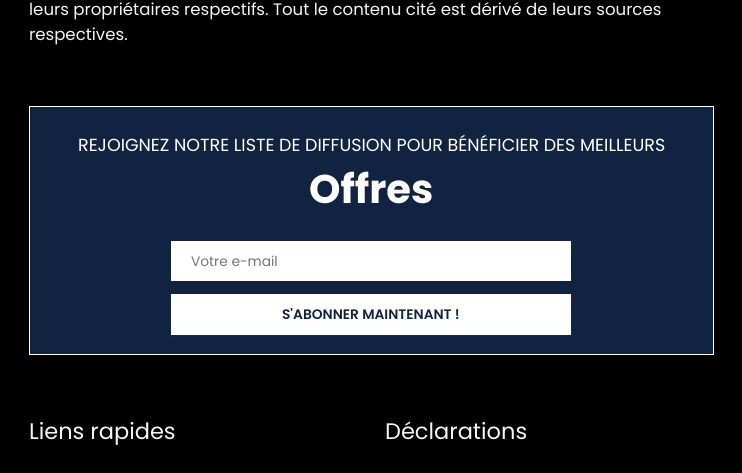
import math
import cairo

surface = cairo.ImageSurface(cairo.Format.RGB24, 742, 473)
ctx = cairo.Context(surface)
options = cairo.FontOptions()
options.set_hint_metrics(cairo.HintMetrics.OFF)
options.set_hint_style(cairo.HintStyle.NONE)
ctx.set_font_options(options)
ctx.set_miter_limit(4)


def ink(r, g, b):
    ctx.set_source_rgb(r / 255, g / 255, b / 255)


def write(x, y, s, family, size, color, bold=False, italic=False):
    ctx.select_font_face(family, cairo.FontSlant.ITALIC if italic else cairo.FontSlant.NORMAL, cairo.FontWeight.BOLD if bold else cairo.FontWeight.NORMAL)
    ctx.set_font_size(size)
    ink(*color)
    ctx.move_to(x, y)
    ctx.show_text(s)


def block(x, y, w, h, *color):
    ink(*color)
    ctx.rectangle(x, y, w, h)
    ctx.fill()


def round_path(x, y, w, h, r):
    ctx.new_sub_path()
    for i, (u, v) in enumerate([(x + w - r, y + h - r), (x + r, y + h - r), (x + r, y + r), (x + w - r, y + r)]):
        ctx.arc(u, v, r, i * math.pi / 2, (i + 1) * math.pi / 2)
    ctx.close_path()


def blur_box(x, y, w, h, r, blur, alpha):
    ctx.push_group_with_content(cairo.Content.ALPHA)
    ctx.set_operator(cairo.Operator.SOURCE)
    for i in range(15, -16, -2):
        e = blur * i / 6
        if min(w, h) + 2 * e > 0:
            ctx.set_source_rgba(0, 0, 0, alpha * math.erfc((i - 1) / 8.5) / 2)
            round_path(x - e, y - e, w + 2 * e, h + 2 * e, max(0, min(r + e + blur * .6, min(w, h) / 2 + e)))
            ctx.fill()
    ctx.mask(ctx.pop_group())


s1 = dict(family="Poppins", size=16.6, color=(245, 245, 245))
s2 = dict(family="Poppins", size=17.5, color=(255, 255, 255))
s3 = dict(family="Poppins", size=40, color=(255, 255, 255), bold=True)
s4 = dict(family="Poppins", size=13.75, color=(117, 117, 117))
s5 = dict(family="Poppins SemiBold", size=13.75, color=(16, 35, 65))
s6 = dict(family="Poppins", size=22.5, color=(245, 245, 245))

ink(0, 0, 0)
ctx.paint()
write(29, 15, "leurs propriétaires respectifs. Tout le contenu cité est dérivé de leurs sources", **s1)
write(29, 40, "respectives.", **s1)
ink(16, 35, 65)
ctx.rectangle(29.5, 106.5, 684, 248)
ctx.fill_preserve()
ink(255, 255, 255)
ctx.set_line_width(1)
ctx.stroke()
write(78, 151, "REJOIGNEZ NOTRE LISTE DE DIFFUSION POUR BÉNÉFICIER DES MEILLEURS", **s2)
write(309, 203, "Offres", **s3)
block(171, 241, 400, 40, 255, 255, 255)
write(191, 266, "Votre e-mail", **s4)
ink(60, 64, 67)
blur_box(171, 295, 400, 41, 0, 1, 0.3)
block(171, 294, 400, 41, 255, 255, 255)
write(282, 319, "S'ABONNER MAINTENANT !", **s5)
write(29, 439, "Liens rapides", **s6)
write(385, 439, "Déclarations", **s6)
surface.write_to_png("screenshot.png")
